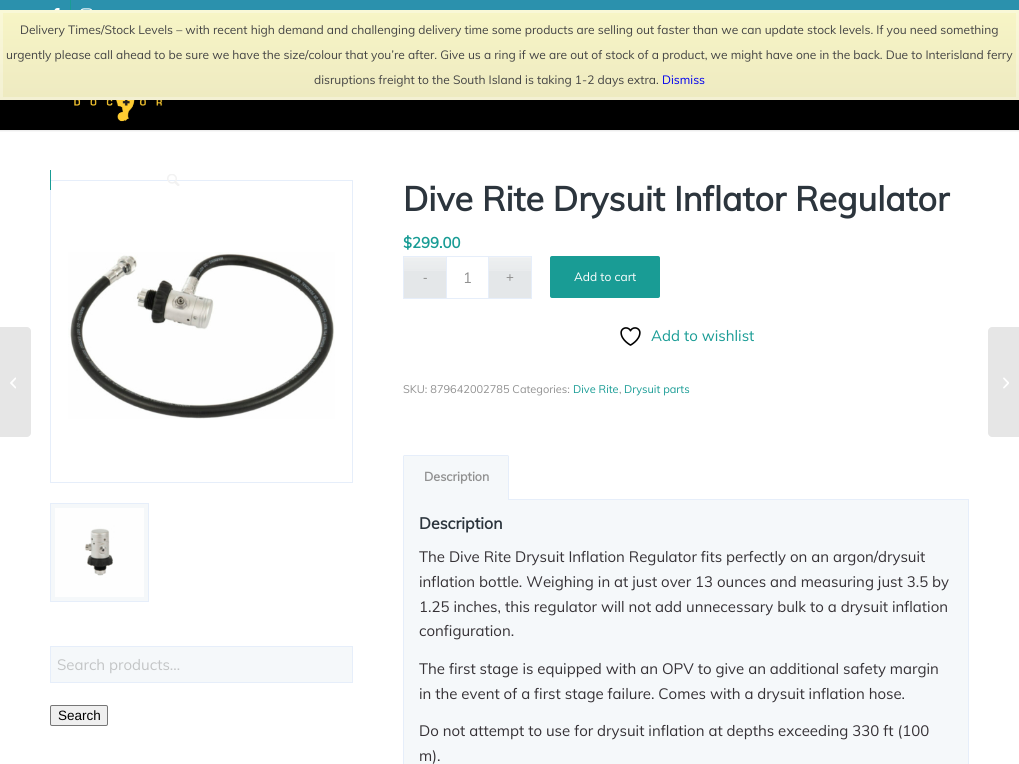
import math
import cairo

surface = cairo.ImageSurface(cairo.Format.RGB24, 1019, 764)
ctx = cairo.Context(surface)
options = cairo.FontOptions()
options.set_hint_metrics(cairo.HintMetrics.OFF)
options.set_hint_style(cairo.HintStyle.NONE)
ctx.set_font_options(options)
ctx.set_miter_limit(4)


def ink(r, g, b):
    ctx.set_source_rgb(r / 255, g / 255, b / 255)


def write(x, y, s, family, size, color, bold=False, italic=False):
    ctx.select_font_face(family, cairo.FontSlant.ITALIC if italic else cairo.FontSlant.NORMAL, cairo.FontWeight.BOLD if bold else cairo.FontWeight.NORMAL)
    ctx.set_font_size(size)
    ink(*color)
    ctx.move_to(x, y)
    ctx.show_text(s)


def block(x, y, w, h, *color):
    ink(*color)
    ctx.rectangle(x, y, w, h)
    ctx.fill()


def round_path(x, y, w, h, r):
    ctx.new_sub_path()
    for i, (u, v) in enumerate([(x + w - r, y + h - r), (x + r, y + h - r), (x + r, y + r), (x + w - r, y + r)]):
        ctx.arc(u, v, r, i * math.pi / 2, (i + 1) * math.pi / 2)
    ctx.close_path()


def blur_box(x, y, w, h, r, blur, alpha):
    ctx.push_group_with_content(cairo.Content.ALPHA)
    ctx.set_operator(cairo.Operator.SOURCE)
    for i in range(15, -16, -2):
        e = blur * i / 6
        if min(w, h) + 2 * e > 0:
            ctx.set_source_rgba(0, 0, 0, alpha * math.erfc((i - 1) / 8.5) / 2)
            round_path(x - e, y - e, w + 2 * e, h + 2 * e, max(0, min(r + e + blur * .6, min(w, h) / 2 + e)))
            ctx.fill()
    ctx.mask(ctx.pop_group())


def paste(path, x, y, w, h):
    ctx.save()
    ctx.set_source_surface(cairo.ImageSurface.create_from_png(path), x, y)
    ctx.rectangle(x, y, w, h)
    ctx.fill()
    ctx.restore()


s1 = dict(family="Muli", size=12, color=(68, 68, 68))
s2 = dict(family="Muli", size=12, color=(0, 0, 238))
s3 = dict(family="Muli", size=15, color=(195, 197, 198))
s4 = dict(family="Liberation Sans", size=13.5, color=(0, 0, 0))
s5 = dict(family="Muli", size=34, color=(44, 53, 61), bold=True)
s6 = dict(family="Muli", size=15, color=(25, 156, 149), bold=True)
s7 = dict(family="Liberation Sans", size=13.5, color=(145, 145, 145))
s8 = dict(family="Muli", size=15, color=(145, 145, 145))
s9 = dict(family="Muli", size=12, color=(255, 255, 255))
s10 = dict(family="Muli", size=15, color=(25, 156, 149))
s11 = dict(family="Muli", size=11, color=(145, 145, 145))
s12 = dict(family="Muli", size=11, color=(25, 156, 149))
s13 = dict(family="Muli", size=12.5, color=(145, 145, 145), bold=True)
s14 = dict(family="Muli", size=16, color=(44, 53, 61), bold=True)
s15 = dict(family="Muli", size=15, color=(54, 50, 54))

ink(0, 0, 0)
ctx.paint()
block(0, 130, 1019, 634, 255, 255, 255)
ctx.save()
ctx.rectangle(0, 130, 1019, 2)
ctx.clip()
ink(0, 0, 0)
blur_box(-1, -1, 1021, 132, 0, 1, 0.1)
ctx.restore()
gradient = cairo.LinearGradient(510, 10, 510, 100)
gradient.add_color_stop_rgba(0, 0.969, 0.961, 0.776, 1)
gradient.add_color_stop_rgba(1, 0.933, 0.918, 0.757, 1)
ctx.set_source(gradient)
ctx.rectangle(0, 10, 1019, 90)
ctx.fill()
ctx.rectangle(1.5, 11.5, 1016, 87)
ctx.set_source_rgba(1, 1, 1, 0.3)
ctx.set_line_width(3)
ctx.stroke()
write(20, 34, "Delivery Times/Stock Levels – with recent high demand and challenging delivery time some products are selling out faster than we can update stock levels. If you need something", **s1)
write(6, 59, "urgently please call ahead to be sure we have the size/colour that you’re after. Give us a ring if we are out of stock of a product, we might have one in the back. Due to Interisland ferry", **s1)
write(314, 84, "disruptions freight to the South Island is taking 1-2 days extra.", **s1)
write(662, 84, "Dismiss", **s2)
block(0, 0, 1019, 10, 43, 145, 173)
block(70, 0, 1, 10, 25, 156, 149)
paste("pic1.png", 54, 8, 6, 2)
paste("pic2.png", 80, 8, 12, 2)
paste("pic3.png", 72, 100, 92, 22)
ctx.rectangle(50.5, 180.5, 302, 302)
ink(230, 238, 250)
ctx.set_line_width(1)
ctx.stroke()
block(50, 170, 1, 20, 25, 156, 149)
paste("pic4.png", 167, 174, 13, 12)
ink(230, 230, 230)
ctx.new_path()
ctx.move_to(0, 327)
ctx.line_to(27, 327)
ctx.curve_to(29, 327, 31, 329, 31, 331)
ctx.line_to(31, 433)
ctx.curve_to(31, 435, 29, 437, 27, 437)
ctx.line_to(0, 437)
ctx.close_path()
ctx.fill()
paste("pic5.png", 10, 377, 6, 12)
paste("pic6.png", 68, 252, 267, 167)
ink(245, 248, 250)
ctx.rectangle(50.5, 503.5, 98, 98)
ctx.fill_preserve()
ink(230, 238, 250)
ctx.stroke()
paste("pic7.png", 55, 508, 89, 89)
ink(245, 248, 250)
ctx.rectangle(50.5, 646.5, 302, 36)
ctx.fill_preserve()
ink(230, 238, 250)
ctx.stroke()
write(57, 670, "Search products…", **s3)
ink(239, 239, 239)
round_path(50.5, 705.5, 57, 20, 1.5)
ctx.fill_preserve()
ink(118, 118, 118)
ctx.stroke()
write(58, 720, "Search", **s4)
write(403, 211, "Dive Rite Drysuit Inflator Regulator", **s5)
write(403, 248, "$299.00", **s6)
block(404, 257, 42, 41, 228, 231, 233)
paste("pic8.png", 404, 257, 42, 14)
block(489, 257, 42, 41, 228, 231, 233)
paste("pic8.png", 489, 257, 42, 14)
write(423, 282, "-", **s7)
block(403, 256, 43, 1, 230, 238, 250)
block(403, 298, 43, 1, 230, 238, 250)
block(403, 256, 1, 43, 230, 238, 250)
ctx.rectangle(446.5, 256.5, 42, 42)
ctx.stroke()
write(463, 283, "1", **s8)
write(506, 282, "+", **s7)
block(489, 256, 43, 1, 230, 238, 250)
block(531, 256, 1, 43, 230, 238, 250)
block(489, 298, 43, 1, 230, 238, 250)
ink(25, 156, 149)
round_path(550, 256, 110, 42, 2)
ctx.fill()
write(574, 281, "Add to cart", **s9)
paste("pic9.png", 620, 327, 21, 19)
write(651, 341, "Add to wishlist", **s10)
write(403, 393, "SKU: 879642002785 Categories:", **s11)
write(573, 393, "Dive Rite", **s12)
write(619, 393, ",", **s11)
write(624, 393, "Drysuit parts", **s12)
ink(245, 248, 250)
ctx.rectangle(403.5, 499.5, 565, 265)
ctx.fill_preserve()
ink(230, 238, 250)
ctx.stroke()
block(403, 455, 106, 45, 245, 248, 250)
block(404, 455, 104, 1, 230, 238, 250)
block(508, 456, 1, 44, 230, 238, 250)
block(403, 456, 1, 44, 230, 238, 250)
write(424, 481, "Description", **s13)
write(419, 529, "Description", **s14)
write(419, 562, "The Dive Rite Drysuit Inflation Regulator fits perfectly on an argon/drysuit", **s15)
write(419, 587, "inflation bottle. Weighing in at just over 13 ounces and measuring just 3.5 by", **s15)
write(419, 612, "1.25 inches, this regulator will not add unnecessary bulk to a drysuit inflation", **s15)
write(419, 636, "configuration.", **s15)
write(419, 674, "The first stage is equipped with an OPV to give an additional safety margin", **s15)
write(419, 699, "in the event of a first stage failure. Comes with a drysuit inflation hose.", **s15)
write(419, 736, "Do not attempt to use for drysuit inflation at depths exceeding 330 ft (100", **s15)
write(419, 761, "m).", **s15)
ink(230, 230, 230)
ctx.new_path()
ctx.move_to(992, 327)
ctx.line_to(1019, 327)
ctx.line_to(1019, 437)
ctx.line_to(992, 437)
ctx.curve_to(990, 437, 988, 435, 988, 433)
ctx.line_to(988, 331)
ctx.curve_to(988, 329, 990, 327, 992, 327)
ctx.close_path()
ctx.fill()
paste("pic10.png", 1003, 377, 6, 12)
surface.write_to_png("screenshot.png")
